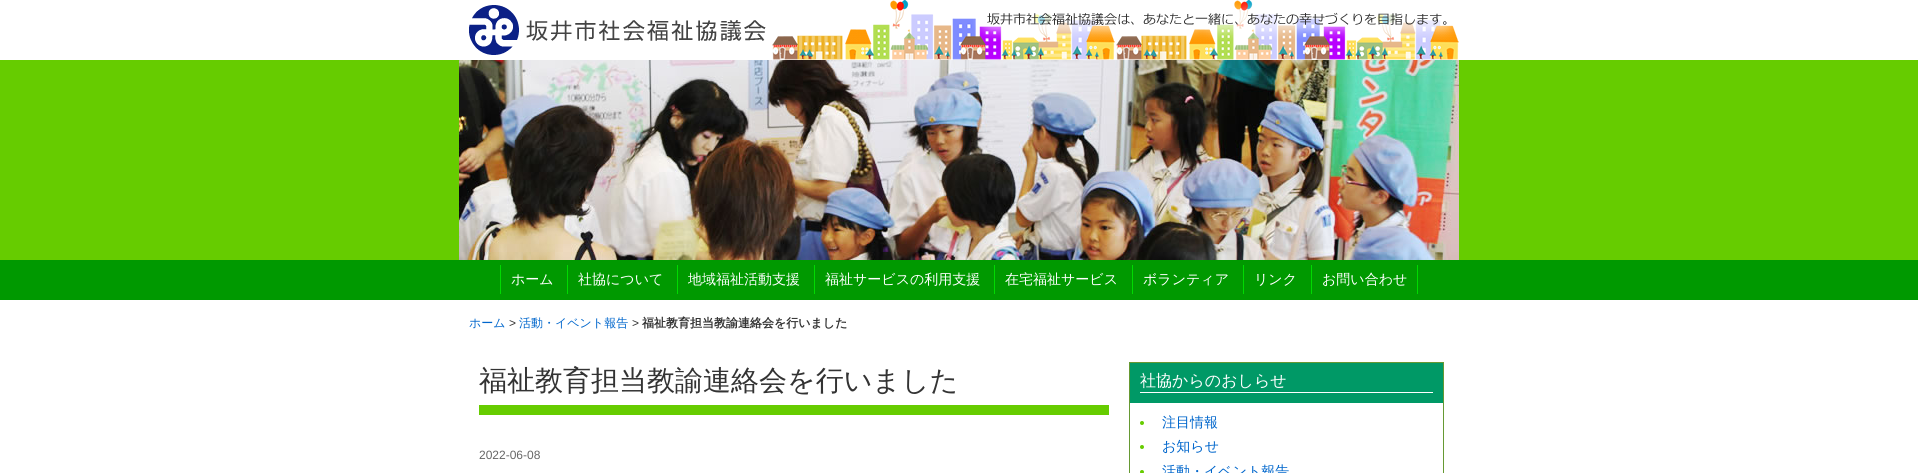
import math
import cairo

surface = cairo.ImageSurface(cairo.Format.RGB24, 1918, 473)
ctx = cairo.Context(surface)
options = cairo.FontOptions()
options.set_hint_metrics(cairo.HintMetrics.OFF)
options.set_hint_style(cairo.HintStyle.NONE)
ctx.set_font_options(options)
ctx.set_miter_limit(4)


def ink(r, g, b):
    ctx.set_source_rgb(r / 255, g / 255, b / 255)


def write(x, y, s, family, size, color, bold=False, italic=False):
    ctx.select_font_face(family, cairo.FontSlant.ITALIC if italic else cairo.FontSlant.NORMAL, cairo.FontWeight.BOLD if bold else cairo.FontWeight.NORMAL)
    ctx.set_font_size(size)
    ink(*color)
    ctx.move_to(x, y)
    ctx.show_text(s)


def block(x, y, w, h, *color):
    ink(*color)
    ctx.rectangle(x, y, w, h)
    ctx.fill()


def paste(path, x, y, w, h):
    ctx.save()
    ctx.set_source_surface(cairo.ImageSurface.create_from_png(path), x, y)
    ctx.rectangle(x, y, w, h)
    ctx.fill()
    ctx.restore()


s1 = dict(family="WenQuanYi Zen Hei Medium", size=14, color=(255, 255, 255))
s2 = dict(family="WenQuanYi Zen Hei Medium", size=12, color=(0, 102, 204))
s3 = dict(family="Liberation Sans", size=12, color=(51, 51, 51))
s4 = dict(family="WenQuanYi Zen Hei", size=12, color=(51, 51, 51), bold=True)
s5 = dict(family="WenQuanYi Zen Hei Medium", size=28, color=(51, 51, 51))
s6 = dict(family="Liberation Sans", size=12, color=(102, 102, 102))
s7 = dict(family="WenQuanYi Zen Hei Medium", size=16, color=(255, 255, 255))
s8 = dict(family="WenQuanYi Zen Hei Medium", size=14, color=(0, 102, 204))

ink(255, 255, 255)
ctx.paint()
paste("pic1.png", 0, 60, 1918, 240)
paste("pic2.png", 469, 0, 990, 60)
paste("pic3.png", 459, 60, 1000, 200)
block(500, 265, 1, 29, 0, 218, 1)
write(511, 284, "ホーム", **s1)
block(567, 265, 1, 29, 0, 218, 1)
write(578, 284, "社協について", **s1)
block(677, 265, 1, 29, 0, 218, 1)
write(688, 284, "地域福祉活動支援", **s1)
block(814, 265, 1, 29, 0, 218, 1)
write(825, 284, "福祉サービスの利用支援", **s1)
block(994, 265, 1, 29, 0, 218, 1)
write(1005, 284, "在宅福祉サービス", **s1)
block(1132, 265, 1, 29, 0, 218, 1)
write(1143, 284, "ボランティア", **s1)
block(1243, 265, 1, 29, 0, 218, 1)
write(1254, 284, "リンク", **s1)
block(1417, 265, 1, 29, 0, 218, 1)
block(1311, 265, 1, 29, 0, 218, 1)
write(1322, 284, "お問い合わせ", **s1)
write(469, 327, "ホーム", **s2)
write(509, 327, ">", **s3)
write(519, 327, "活動・イベント報告", **s2)
write(632, 327, ">", **s3)
write(642, 327, "福祉教育担当教諭連絡会を行いました", **s4)
block(479, 405, 630, 10, 102, 204, 0)
write(479, 390, "福祉教育担当教諭連絡会を行いました", **s5)
write(479, 459, "2022-06-08", **s6)
ctx.rectangle(1129.5, 362.5, 314, 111)
ink(102, 153, 51)
ctx.set_line_width(1)
ctx.stroke()
block(1130, 363, 313, 40, 0, 153, 102)
block(1140, 392, 293, 1, 255, 255, 255)
write(1140, 386, "社協からのおしらせ", **s7)
ink(102, 204, 0)
ctx.new_path()
ctx.arc(1142, 423, 2, 0, 2 * math.pi)
ctx.fill()
write(1162, 427, "注目情報", **s8)
ink(102, 204, 0)
ctx.new_path()
ctx.arc(1142, 447, 2, 0, 2 * math.pi)
ctx.fill()
write(1162, 451, "お知らせ", **s8)
ink(102, 204, 0)
ctx.new_path()
ctx.arc(1142, 472, 2, 0, 2 * math.pi)
ctx.fill()
write(1162, 476, "活動・イベント報告", **s8)
surface.write_to_png("screenshot.png")
